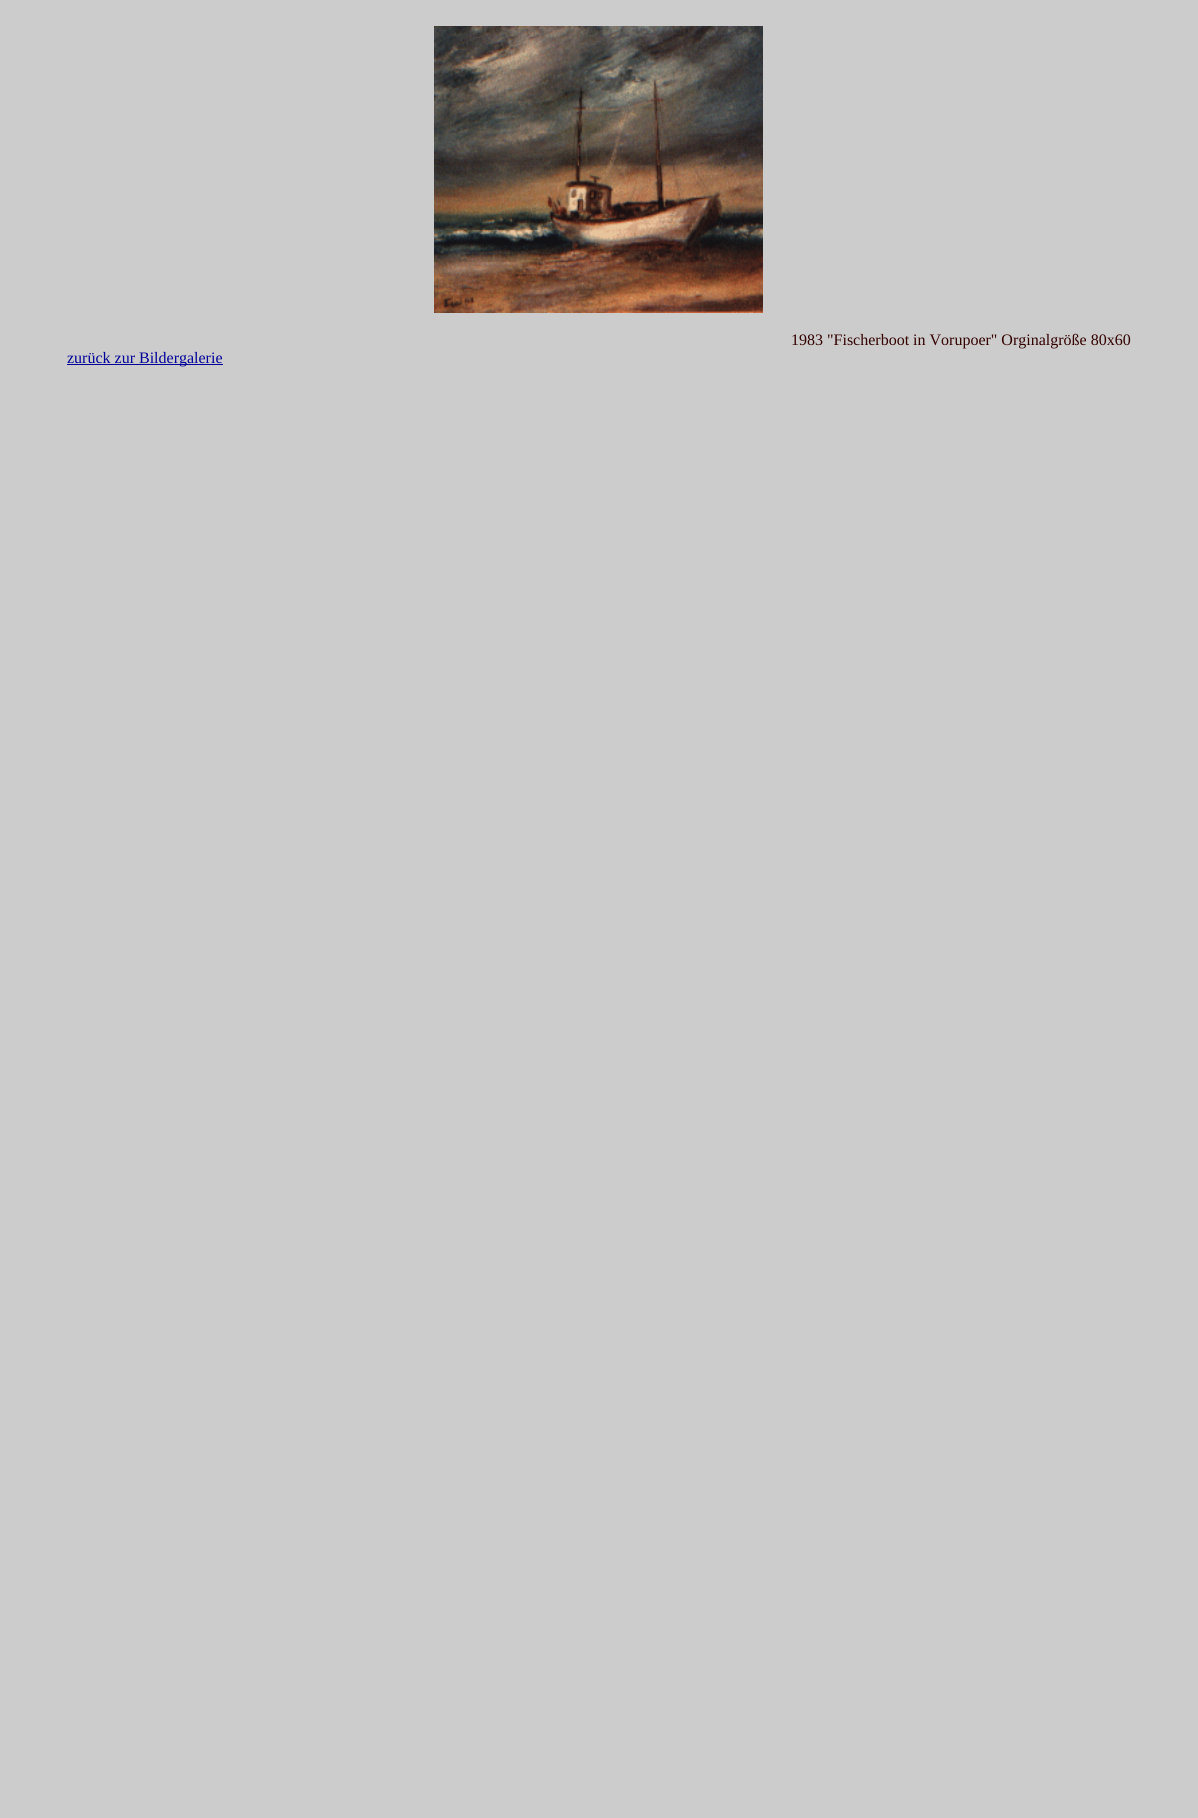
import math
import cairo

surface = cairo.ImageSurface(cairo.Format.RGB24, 1198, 1818)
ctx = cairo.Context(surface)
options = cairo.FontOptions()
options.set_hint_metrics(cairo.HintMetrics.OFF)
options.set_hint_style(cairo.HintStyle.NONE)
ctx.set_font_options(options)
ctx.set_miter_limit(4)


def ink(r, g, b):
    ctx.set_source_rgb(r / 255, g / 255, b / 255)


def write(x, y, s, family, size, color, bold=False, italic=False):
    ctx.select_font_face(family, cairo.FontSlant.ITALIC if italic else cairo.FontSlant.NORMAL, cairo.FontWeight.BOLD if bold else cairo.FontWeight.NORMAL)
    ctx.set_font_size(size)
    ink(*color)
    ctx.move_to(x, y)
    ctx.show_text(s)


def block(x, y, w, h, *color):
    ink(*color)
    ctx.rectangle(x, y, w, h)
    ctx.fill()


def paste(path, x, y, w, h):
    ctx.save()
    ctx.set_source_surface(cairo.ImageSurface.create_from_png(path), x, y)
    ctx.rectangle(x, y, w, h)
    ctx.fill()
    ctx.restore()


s1 = dict(family="Liberation Serif", size=16, color=(51, 0, 0))
s2 = dict(family="Liberation Serif", size=16, color=(0, 0, 153))

ink(204, 204, 204)
ctx.paint()
paste("pic1.png", 434, 26, 329, 287)
write(791, 345, "1983 \"Fischerboot in Vorupoer\" Orginalgröße 80x60", **s1)
block(67, 364, 156, 1, 0, 0, 153)
write(67, 363, "zurück zur Bildergalerie", **s2)
surface.write_to_png("screenshot.png")
